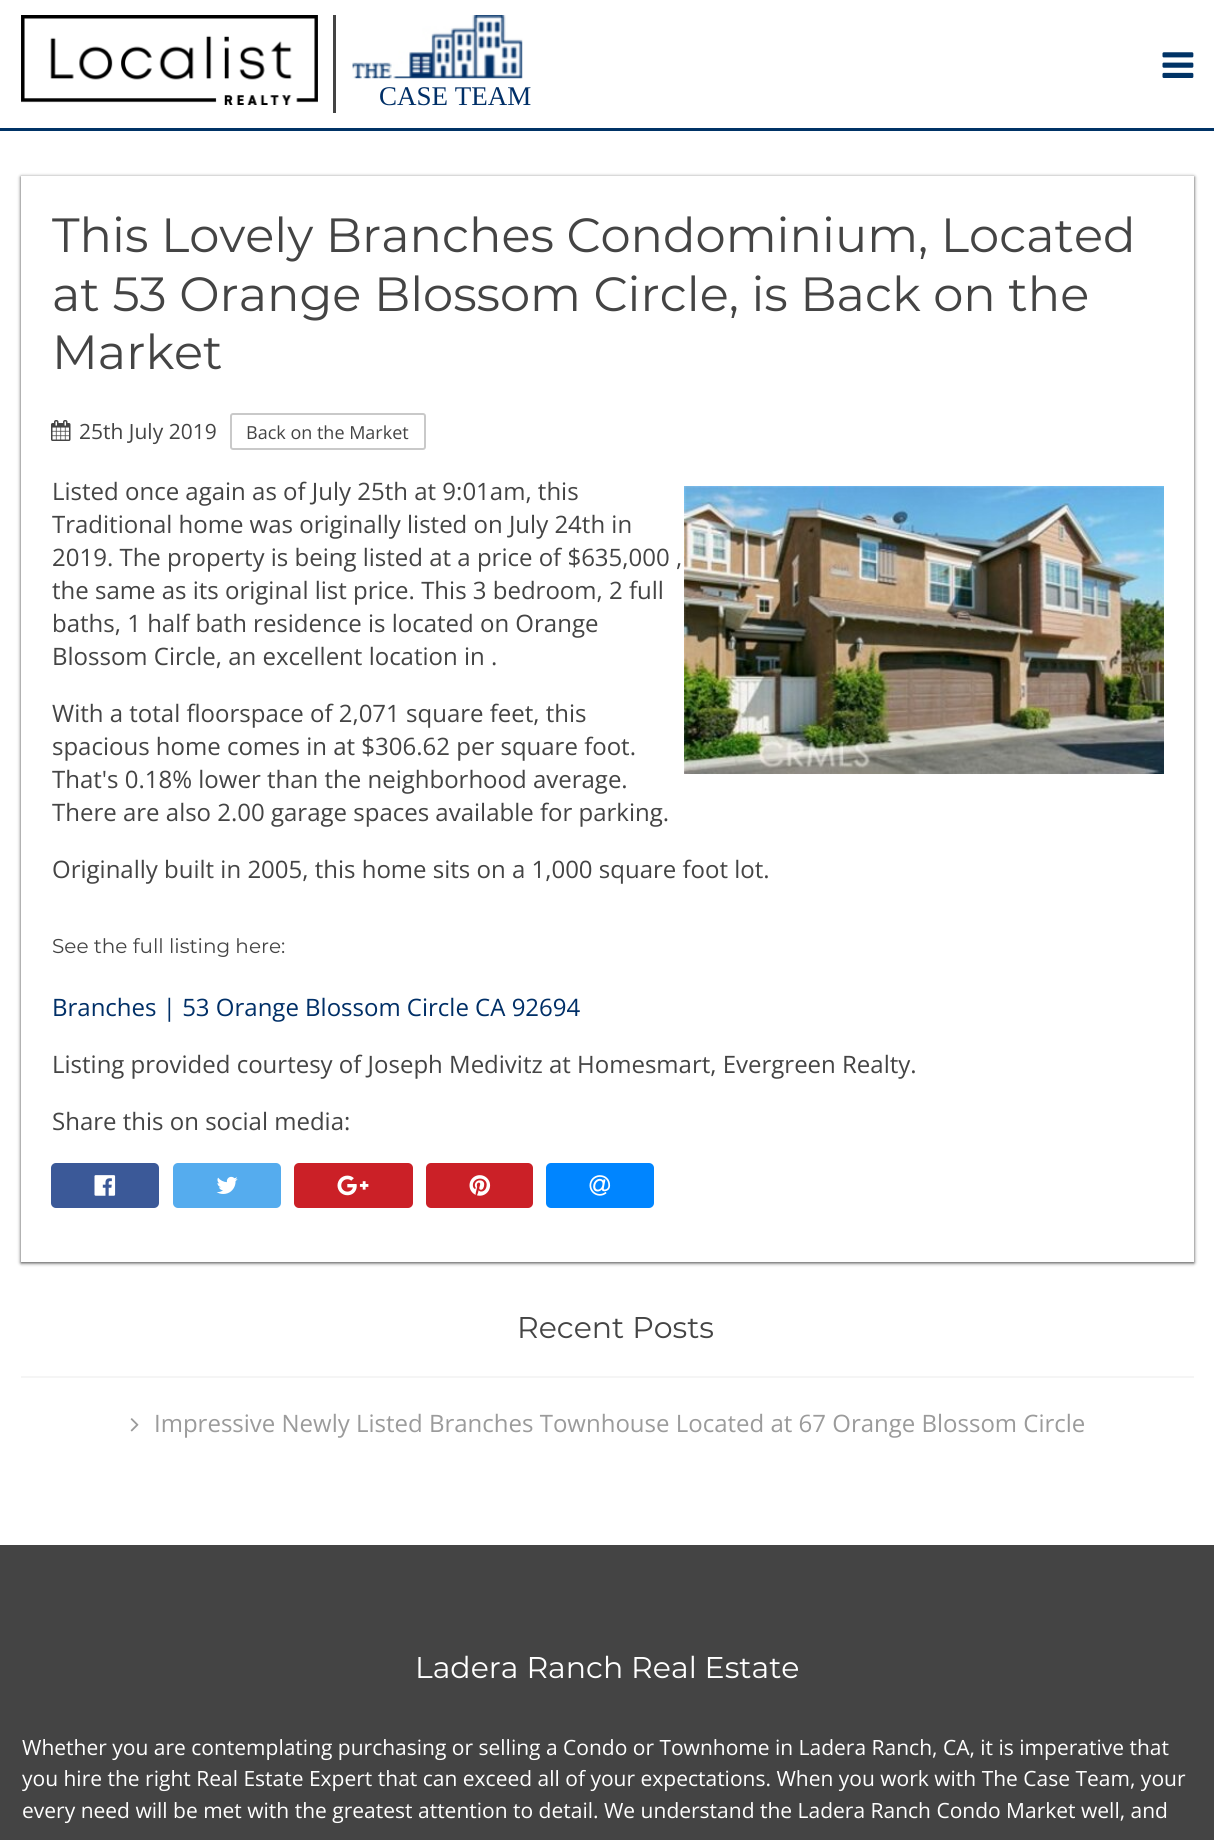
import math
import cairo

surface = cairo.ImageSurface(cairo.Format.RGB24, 1214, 1840)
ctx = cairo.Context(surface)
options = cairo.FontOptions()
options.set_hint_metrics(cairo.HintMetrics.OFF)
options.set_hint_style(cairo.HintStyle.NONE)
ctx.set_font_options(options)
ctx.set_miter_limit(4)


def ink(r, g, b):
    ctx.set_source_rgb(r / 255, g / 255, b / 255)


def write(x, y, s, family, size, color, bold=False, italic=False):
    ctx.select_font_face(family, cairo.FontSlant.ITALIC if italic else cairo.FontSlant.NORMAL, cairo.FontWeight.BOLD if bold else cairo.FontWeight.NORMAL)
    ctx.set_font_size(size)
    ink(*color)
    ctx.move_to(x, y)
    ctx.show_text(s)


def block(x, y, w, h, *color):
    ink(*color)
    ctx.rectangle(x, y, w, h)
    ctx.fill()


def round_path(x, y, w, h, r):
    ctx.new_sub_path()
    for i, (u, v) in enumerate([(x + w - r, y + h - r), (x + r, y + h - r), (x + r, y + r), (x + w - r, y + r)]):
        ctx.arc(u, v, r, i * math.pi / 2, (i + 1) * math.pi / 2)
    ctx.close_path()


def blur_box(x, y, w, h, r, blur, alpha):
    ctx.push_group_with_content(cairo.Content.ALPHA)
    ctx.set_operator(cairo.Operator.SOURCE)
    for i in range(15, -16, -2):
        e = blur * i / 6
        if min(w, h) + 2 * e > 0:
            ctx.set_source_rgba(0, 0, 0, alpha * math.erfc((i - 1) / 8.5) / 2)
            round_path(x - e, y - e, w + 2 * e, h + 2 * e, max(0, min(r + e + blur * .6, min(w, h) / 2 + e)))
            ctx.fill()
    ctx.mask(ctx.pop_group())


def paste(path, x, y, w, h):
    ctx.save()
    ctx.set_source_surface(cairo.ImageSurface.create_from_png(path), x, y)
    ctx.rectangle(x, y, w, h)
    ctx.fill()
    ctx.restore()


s1 = dict(family="Liberation Serif", size=27, color=(0, 47, 103))
s2 = dict(family="Montserrat Thin", size=48, color=(68, 68, 68))
s3 = dict(family="Open Sans", size=21, color=(68, 68, 68))
s4 = dict(family="Open Sans", size=18, color=(68, 68, 68))
s5 = dict(family="Open Sans", size=24, color=(68, 68, 68))
s6 = dict(family="Montserrat Thin", size=20, color=(68, 68, 68))
s7 = dict(family="Open Sans", size=24, color=(0, 47, 103))
s8 = dict(family="Montserrat Thin", size=30, color=(68, 68, 68))
s9 = dict(family="Open Sans", size=24, color=(155, 155, 155))
s10 = dict(family="Montserrat Thin", size=30, color=(255, 255, 255))
s11 = dict(family="Open Sans", size=21, color=(255, 255, 255))

ink(255, 255, 255)
ctx.paint()
paste("pic1.png", 1162, 52, 32, 26)
block(333, 15, 3, 98, 68, 68, 68)
paste("pic2.png", 21, 15, 297, 90)
paste("pic3.png", 352, 15, 171, 64)
write(379, 105, "CASE TEAM", **s1)
block(0, 128, 1214, 3, 0, 51, 102)
ctx.save()
ctx.set_fill_rule(cairo.FillRule.EVEN_ODD)
ctx.new_path()
ctx.move_to(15, 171)
ctx.line_to(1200, 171)
ctx.line_to(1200, 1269)
ctx.line_to(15, 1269)
ctx.close_path()
ctx.move_to(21, 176)
ctx.line_to(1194, 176)
ctx.line_to(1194, 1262)
ctx.line_to(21, 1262)
ctx.close_path()
ctx.clip()
ink(0, 0, 0)
blur_box(21, 177, 1173, 1086, 0, 1.5, 0.48)
ctx.restore()
ctx.save()
ctx.set_fill_rule(cairo.FillRule.EVEN_ODD)
ctx.new_path()
ctx.move_to(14, 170)
ctx.line_to(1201, 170)
ctx.line_to(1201, 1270)
ctx.line_to(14, 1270)
ctx.close_path()
ctx.move_to(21, 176)
ctx.line_to(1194, 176)
ctx.line_to(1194, 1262)
ctx.line_to(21, 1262)
ctx.close_path()
ctx.clip()
ink(0, 0, 0)
blur_box(21, 177, 1173, 1086, 0, 2, 0.36)
ctx.restore()
write(52, 252, "This Lovely Branches Condominium, Located", **s2)
write(52, 311, "at 53 Orange Blossom Circle, is Back on the", **s2)
write(52, 369, "Market", **s2)
paste("pic4.png", 51, 420, 20, 21)
write(79, 439, "25th July 2019", **s3)
round_path(231, 414, 194, 35, 2)
ink(201, 201, 201)
ctx.stroke()
write(246, 439, "Back on the Market", **s4)
write(52, 500, "Listed once again as of July 25th at 9:01am, this", **s5)
write(52, 533, "Traditional home was originally listed on July 24th in", **s5)
write(52, 566, "2019. The property is being listed at a price of $635,000 ,", **s5)
write(52, 599, "the same as its original list price. This 3 bedroom, 2 full", **s5)
write(52, 632, "baths, 1 half bath residence is located on Orange", **s5)
write(52, 665, "Blossom Circle, an excellent location in .", **s5)
paste("pic5.png", 684, 486, 480, 288)
write(52, 722, "With a total floorspace of 2,071 square feet, this", **s5)
write(52, 755, "spacious home comes in at $306.62 per square foot.", **s5)
write(52, 788, "That's 0.18% lower than the neighborhood average.", **s5)
write(52, 821, "There are also 2.00 garage spaces available for parking.", **s5)
write(52, 878, "Originally built in 2005, this home sits on a 1,000 square foot lot.", **s5)
write(52, 953, "See the full listing here:", **s6)
write(52, 1016, "Branches | 53 Orange Blossom Circle CA 92694", **s7)
write(52, 1073, "Listing provided courtesy of Joseph Medivitz at Homesmart, Evergreen Realty.", **s5)
write(52, 1130, "Share this on social media:", **s5)
ink(59, 89, 152)
round_path(51, 1163, 108, 45, 5)
ctx.fill()
paste("pic6.png", 94, 1175, 22, 21)
ink(85, 172, 238)
round_path(173, 1163, 108, 45, 5)
ctx.fill()
paste("pic7.png", 216, 1176, 22, 18)
ink(203, 32, 39)
round_path(294, 1163, 119, 45, 5)
ctx.fill()
paste("pic8.png", 337, 1175, 32, 21)
round_path(426, 1163, 107, 45, 5)
ctx.fill()
paste("pic9.png", 469, 1175, 22, 21)
ink(0, 133, 255)
round_path(546, 1163, 108, 45, 5)
ctx.fill()
paste("pic10.png", 589, 1175, 22, 21)
block(21, 1376, 1173, 2, 245, 245, 245)
write(517, 1338, "Recent Posts", **s8)
paste("pic11.png", 130, 1418, 9, 14)
write(154, 1432, "Impressive Newly Listed Branches Townhouse Located at 67 Orange Blossom Circle", **s9)
block(0, 1545, 1214, 295, 68, 68, 68)
write(415, 1678, "Ladera Ranch Real Estate", **s10)
write(22, 1755, "Whether you are contemplating purchasing or selling a Condo or Townhome in Ladera Ranch, CA, it is imperative that", **s11)
write(22, 1786, "you hire the right Real Estate Expert that can exceed all of your expectations. When you work with The Case Team, your", **s11)
write(22, 1818, "every need will be met with the greatest attention to detail. We understand the Ladera Ranch Condo Market well, and", **s11)
surface.write_to_png("screenshot.png")
